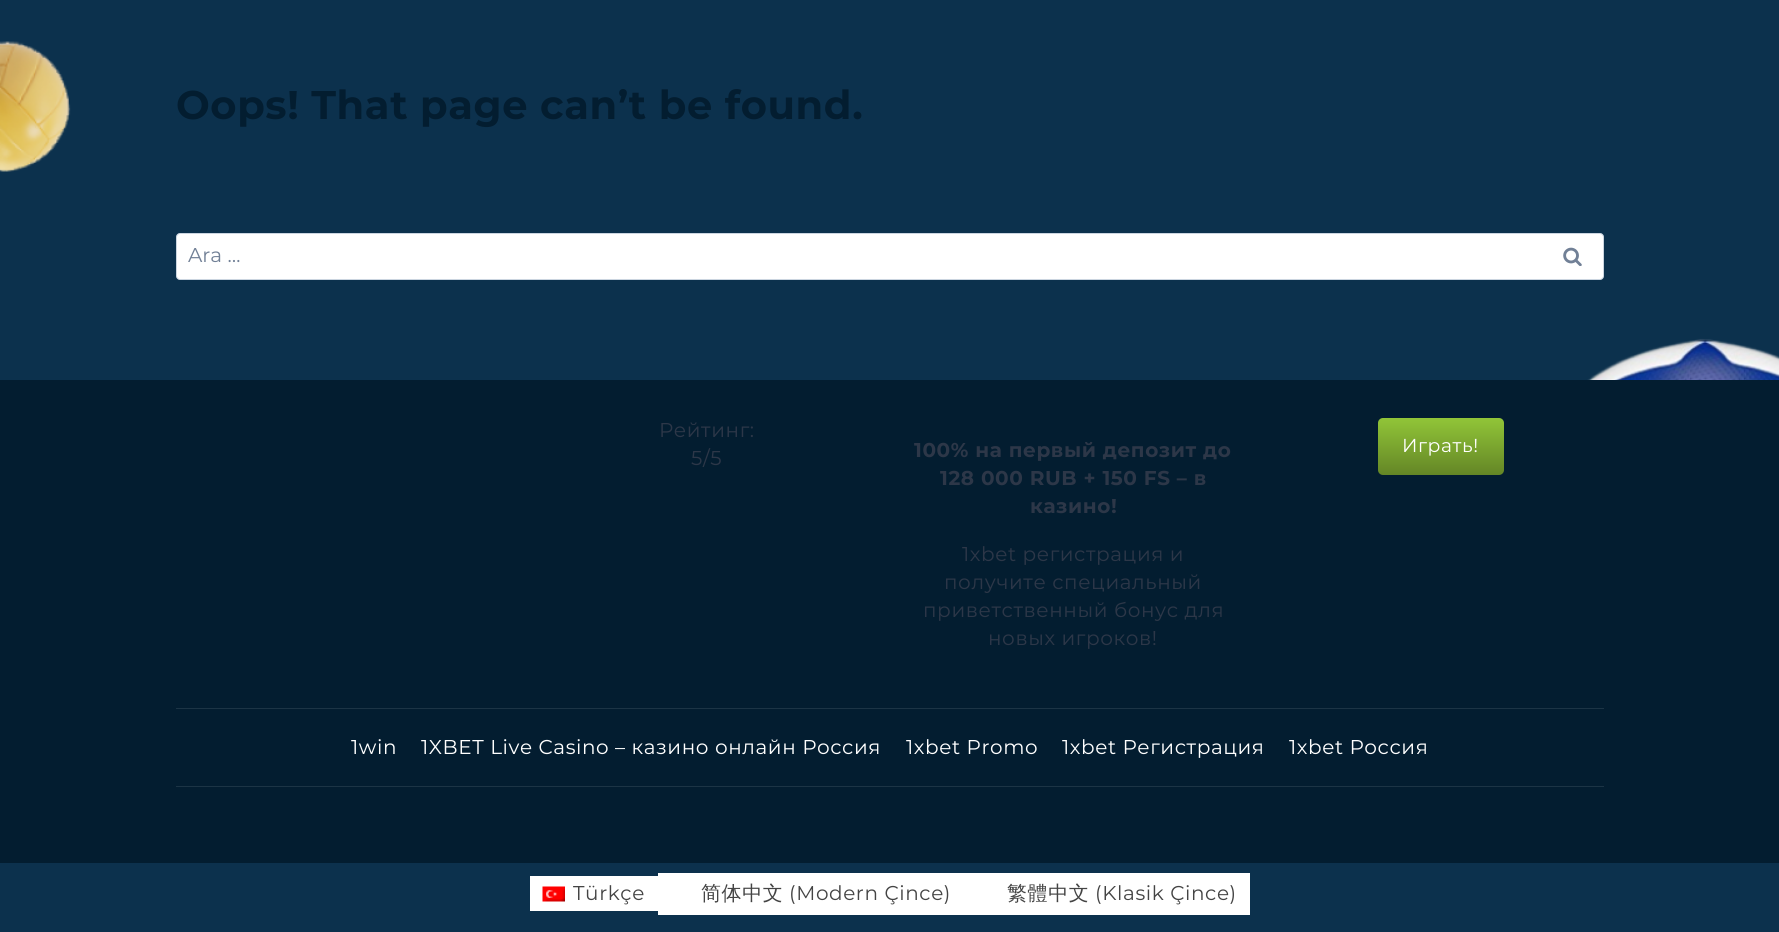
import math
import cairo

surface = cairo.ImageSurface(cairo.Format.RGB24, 1779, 932)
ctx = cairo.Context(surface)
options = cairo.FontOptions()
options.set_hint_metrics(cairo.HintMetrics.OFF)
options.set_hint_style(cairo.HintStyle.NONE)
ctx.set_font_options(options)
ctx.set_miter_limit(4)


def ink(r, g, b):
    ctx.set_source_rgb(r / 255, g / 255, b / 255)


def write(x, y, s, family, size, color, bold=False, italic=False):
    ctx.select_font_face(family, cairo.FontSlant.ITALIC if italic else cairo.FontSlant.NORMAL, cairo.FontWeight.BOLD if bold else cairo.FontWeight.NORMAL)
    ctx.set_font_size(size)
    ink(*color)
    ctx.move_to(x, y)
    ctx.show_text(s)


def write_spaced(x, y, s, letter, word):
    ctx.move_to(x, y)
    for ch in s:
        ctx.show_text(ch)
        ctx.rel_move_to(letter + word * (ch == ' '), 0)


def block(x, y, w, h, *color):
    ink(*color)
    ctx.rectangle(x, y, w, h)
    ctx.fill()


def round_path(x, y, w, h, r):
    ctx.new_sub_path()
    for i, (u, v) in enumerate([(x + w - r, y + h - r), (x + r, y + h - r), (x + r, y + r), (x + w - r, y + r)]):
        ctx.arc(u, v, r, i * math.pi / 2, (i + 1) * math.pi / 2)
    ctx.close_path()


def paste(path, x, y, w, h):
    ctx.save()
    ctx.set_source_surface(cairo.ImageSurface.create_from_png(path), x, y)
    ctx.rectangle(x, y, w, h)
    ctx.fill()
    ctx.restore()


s1 = dict(family="Montserrat", size=20, color=(113, 128, 150))

ink(12, 49, 77)
ctx.paint()
paste("pic1.png", 0, 41, 1779, 339)
ctx.select_font_face("Montserrat", cairo.FontSlant.NORMAL, cairo.FontWeight.BOLD)
ctx.set_font_size(40)
ink(3, 29, 48)
write_spaced(176, 119, "Oops! That page can’t be found.", 0.6, 0)
ink(255, 255, 255)
round_path(176.5, 233.5, 1427, 46, 3.5)
ctx.fill_preserve()
ink(203, 213, 224)
ctx.set_line_width(1)
ctx.stroke()
write(188, 262, "Ara …", **s1)
paste("pic2.png", 1563, 247, 19, 19)
block(0, 380, 1779, 483, 3, 29, 48)
ink(45, 55, 72)
write_spaced(659, 437, "Рейтинг:", 0.6, 0)
write_spaced(691, 465, "5/5", 0.6, 0)
ctx.select_font_face("Montserrat", cairo.FontSlant.NORMAL, cairo.FontWeight.BOLD)
write_spaced(914, 457, "100% на первый депозит до", 0.6, 0)
write_spaced(940, 485, "128 000 RUB + 150 FS – в", 0.6, 0)
write_spaced(1030, 513, "казино!", 0.6, 0)
ctx.select_font_face("Montserrat")
write_spaced(962, 561, "1xbet pегистрация и", 0.6, 0)
write_spaced(944, 589, "получите специальный", 0.6, 0)
write_spaced(923, 617, "приветственный бонус для", 0.6, 0)
write_spaced(988, 645, "новых игроков!", 0.6, 0)
gradient = cairo.LinearGradient(1441, 418, 1441, 475)
gradient.add_color_stop_rgba(0, 0.569, 0.773, 0.22, 1)
gradient.add_color_stop_rgba(1, 0.392, 0.525, 0.149, 1)
ctx.set_source(gradient)
round_path(1378, 418, 126, 57, 5)
ctx.fill()
ctx.set_font_size(18.75)
ink(255, 255, 255)
write_spaced(1402, 452, "Играть!", 0.6, 0)
block(176, 708, 1428, 1, 28, 52, 69)
block(176, 786, 1428, 1, 28, 52, 69)
ctx.set_font_size(20)
ink(255, 255, 255)
write_spaced(351, 754, "1win", 0.6, 0)
write_spaced(421, 754, "1XBET Live Casino – казино онлайн Россия", 0.6, 0)
write_spaced(906, 754, "1xbet Promo", 0.6, 0)
write_spaced(1062, 754, "1xbet Регистрация", 0.6, 0)
write_spaced(1289, 754, "1xbet Россия", 0.6, 0)
block(530, 876, 128, 35, 255, 255, 255)
paste("pic3.png", 542, 886, 23, 16)
ink(68, 68, 68)
write_spaced(573, 900, "Türkçe", 0.6, 0)
block(658, 873, 592, 42, 255, 255, 255)
ctx.select_font_face("WenQuanYi Zen Hei Medium")
ink(68, 68, 68)
write_spaced(701, 900, "简体中文", 0.6, 0)
ctx.select_font_face("Montserrat")
write_spaced(789, 900, "(Modern Çince)", 0.6, 0)
ctx.select_font_face("WenQuanYi Zen Hei Medium")
write_spaced(1007, 900, "繁體中文", 0.6, 0)
ctx.select_font_face("Montserrat")
write_spaced(1095, 900, "(Klasik Çince)", 0.6, 0)
surface.write_to_png("screenshot.png")
